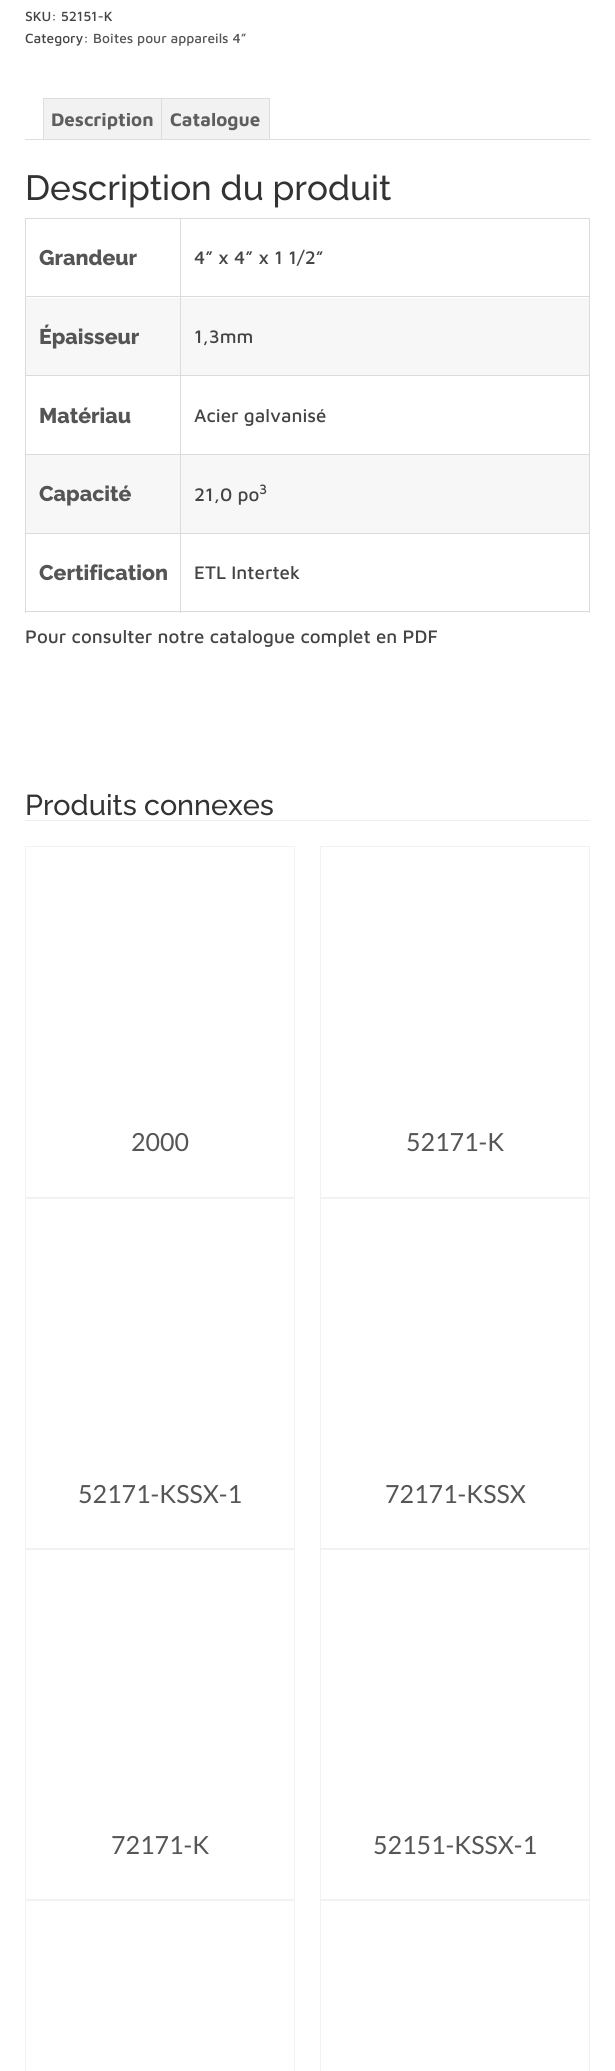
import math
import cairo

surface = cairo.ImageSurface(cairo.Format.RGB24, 615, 2071)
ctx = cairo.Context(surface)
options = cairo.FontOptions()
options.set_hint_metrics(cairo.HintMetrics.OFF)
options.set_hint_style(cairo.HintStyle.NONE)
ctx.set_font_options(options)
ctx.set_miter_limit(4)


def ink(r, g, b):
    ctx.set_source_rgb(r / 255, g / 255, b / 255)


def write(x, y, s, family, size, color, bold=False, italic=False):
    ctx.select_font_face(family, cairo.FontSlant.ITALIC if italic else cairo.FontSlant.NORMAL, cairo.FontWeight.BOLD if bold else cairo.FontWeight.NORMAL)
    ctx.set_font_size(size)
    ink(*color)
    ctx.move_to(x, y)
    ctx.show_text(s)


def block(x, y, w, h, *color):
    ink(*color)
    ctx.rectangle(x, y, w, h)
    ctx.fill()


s1 = dict(family="Maven Pro Medium", size=13.75, color=(68, 68, 68))
s2 = dict(family="Maven Pro Medium", size=13.75, color=(85, 85, 85))
s3 = dict(family="Maven Pro", size=18.75, color=(94, 94, 94), bold=True)
s4 = dict(family="Raleway Thin", size=35, color=(51, 51, 51))
s5 = dict(family="Raleway ExtraBold", size=21.25, color=(85, 85, 85))
s6 = dict(family="Maven Pro Medium", size=18.75, color=(68, 68, 68))
s7 = dict(family="Maven Pro Medium", size=14, color=(68, 68, 68))
s8 = dict(family="Raleway Thin", size=28.75, color=(51, 51, 51))
s9 = dict(family="Lato", size=25, color=(85, 85, 85))

ink(255, 255, 255)
ctx.paint()
write(25, 21, "SKU: 52151-K", **s1)
write(25, 43, "Category:", **s1)
write(93, 43, "Boîtes pour appareils 4”", **s2)
block(44, 99, 117, 40, 242, 242, 242)
ctx.rectangle(43.5, 98.5, 119, 41)
ink(221, 221, 221)
ctx.set_line_width(1)
ctx.stroke()
write(51, 126, "Description", **s3)
ink(242, 242, 242)
ctx.rectangle(161.5, 98.5, 108, 41)
ctx.fill_preserve()
ink(221, 221, 221)
ctx.stroke()
write(170, 126, "Catalogue", **s3)
block(25, 139, 565, 1, 223, 219, 223)
write(25, 200, "Description du produit", **s4)
block(180, 218, 410, 1, 219, 219, 219)
block(180, 296, 410, 1, 219, 219, 219)
block(26, 298, 563, 77, 247, 247, 247)
block(180, 375, 410, 1, 219, 219, 219)
block(180, 454, 410, 1, 219, 219, 219)
block(26, 455, 563, 78, 247, 247, 247)
block(180, 533, 410, 1, 219, 219, 219)
block(589, 533, 1, 80, 219, 219, 219)
block(180, 611, 410, 1, 219, 219, 219)
block(180, 533, 1, 80, 219, 219, 219)
block(25, 533, 156, 1, 219, 219, 219)
block(180, 454, 1, 80, 219, 219, 219)
block(25, 454, 156, 1, 219, 219, 219)
block(180, 375, 1, 80, 219, 219, 219)
block(25, 375, 156, 1, 219, 219, 219)
block(180, 296, 1, 80, 219, 219, 219)
block(25, 296, 156, 1, 219, 219, 219)
block(180, 218, 1, 80, 219, 219, 219)
block(25, 218, 156, 1, 219, 219, 219)
block(25, 611, 156, 1, 219, 219, 219)
block(25, 533, 1, 80, 219, 219, 219)
block(25, 454, 1, 80, 219, 219, 219)
block(25, 375, 1, 80, 219, 219, 219)
block(25, 296, 1, 80, 219, 219, 219)
block(25, 218, 1, 80, 219, 219, 219)
write(39, 265, "Grandeur", **s5)
block(589, 454, 1, 80, 219, 219, 219)
block(589, 375, 1, 80, 219, 219, 219)
block(589, 296, 1, 80, 219, 219, 219)
block(589, 218, 1, 80, 219, 219, 219)
write(194, 264, "4” x 4” x 1 1/2”", **s6)
write(39, 344, "Épaisseur", **s5)
write(194, 343, "1,3mm", **s6)
write(39, 423, "Matériau", **s5)
write(194, 422, "Acier galvanisé", **s6)
write(39, 501, "Capacité", **s5)
write(194, 501, "21,0 po", **s6)
write(259, 494, "3", **s7)
write(39, 580, "Certification", **s5)
write(194, 579, "ETL Intertek", **s6)
write(25, 643, "Pour consulter notre catalogue complet en PDF", **s6)
block(25, 820, 565, 1, 238, 238, 238)
write(25, 815, "Produits connexes", **s8)
ctx.rectangle(25.5, 846.5, 269, 351)
ink(242, 242, 242)
ctx.stroke()
write(131, 1151, "2000", **s9)
ctx.rectangle(320.5, 846.5, 269, 351)
ink(242, 242, 242)
ctx.stroke()
write(406, 1151, "52171-K", **s9)
ctx.rectangle(25.5, 1198.5, 269, 350)
ink(242, 242, 242)
ctx.stroke()
write(78, 1503, "52171-KSSX-1", **s9)
ctx.rectangle(320.5, 1198.5, 269, 350)
ink(242, 242, 242)
ctx.stroke()
write(385, 1503, "72171-KSSX", **s9)
ctx.rectangle(25.5, 1549.5, 269, 350)
ink(242, 242, 242)
ctx.stroke()
write(111, 1854, "72171-K", **s9)
ctx.rectangle(320.5, 1549.5, 269, 350)
ink(242, 242, 242)
ctx.stroke()
write(373, 1854, "52151-KSSX-1", **s9)
ctx.rectangle(25.5, 1900.5, 269, 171)
ink(242, 242, 242)
ctx.stroke()
ctx.rectangle(320.5, 1900.5, 269, 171)
ctx.stroke()
surface.write_to_png("screenshot.png")
